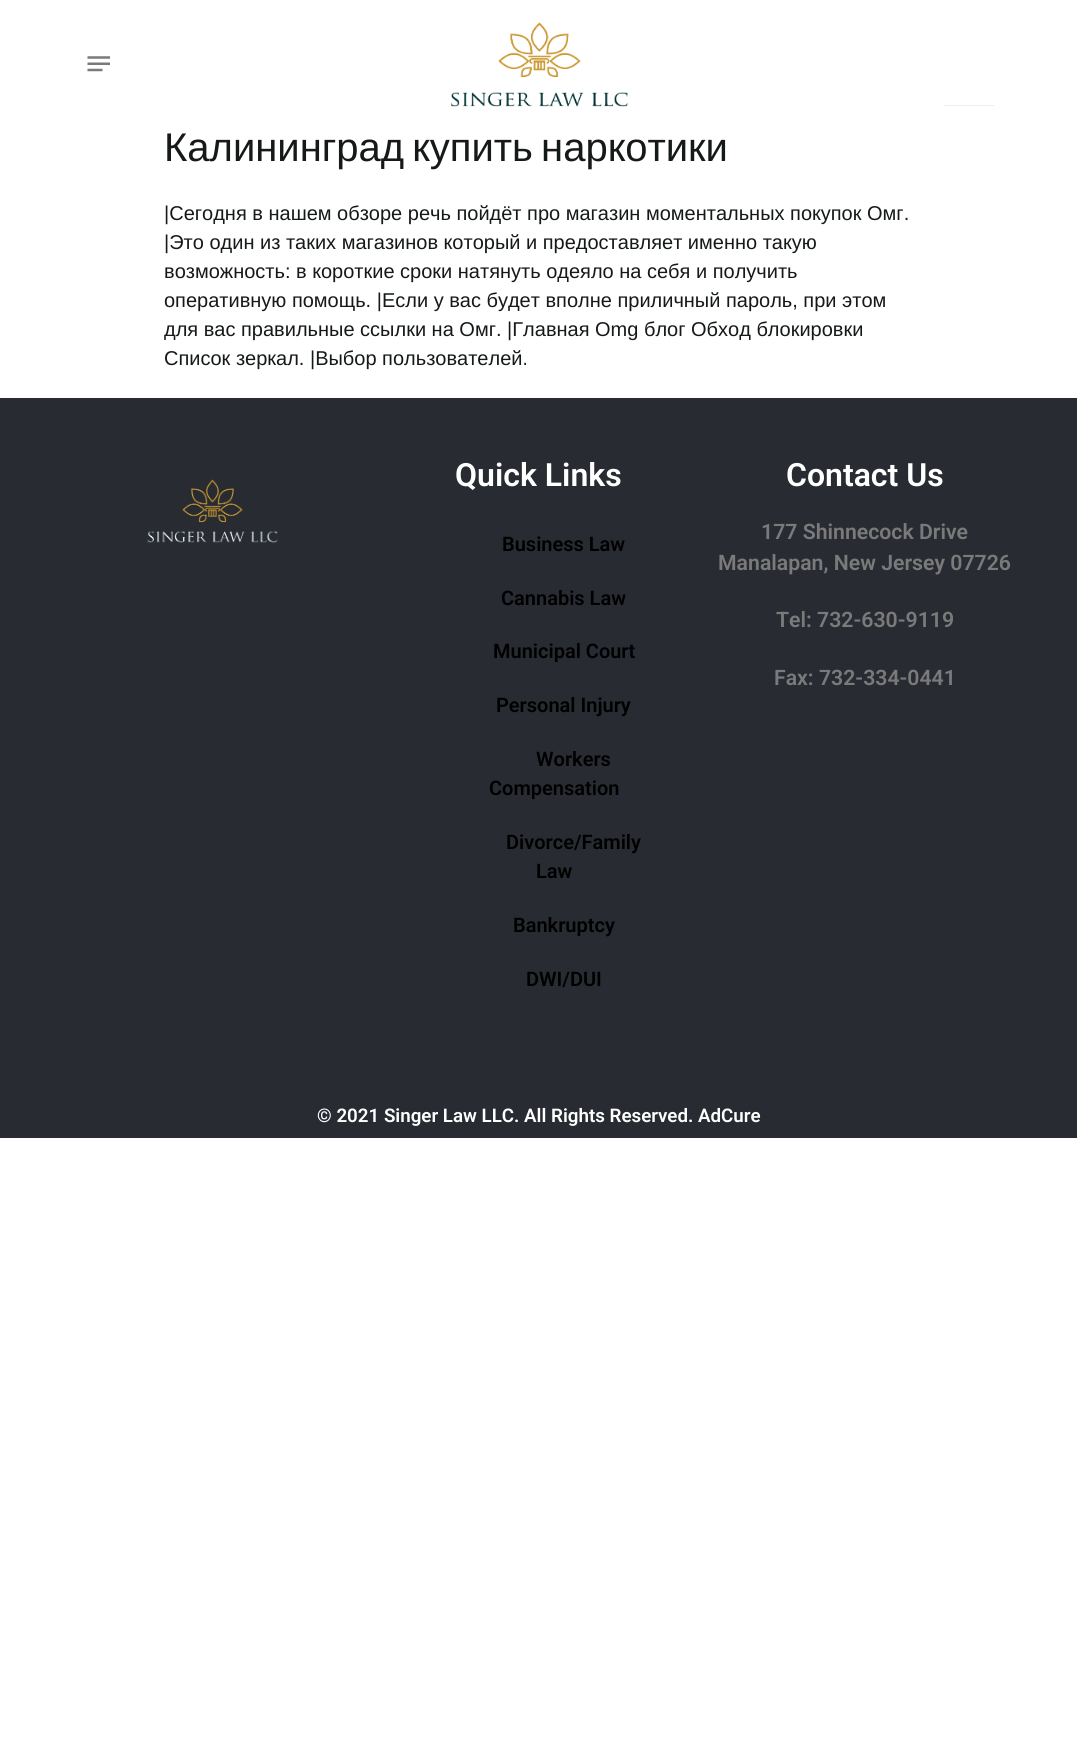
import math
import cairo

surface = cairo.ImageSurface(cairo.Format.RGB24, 1077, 1763)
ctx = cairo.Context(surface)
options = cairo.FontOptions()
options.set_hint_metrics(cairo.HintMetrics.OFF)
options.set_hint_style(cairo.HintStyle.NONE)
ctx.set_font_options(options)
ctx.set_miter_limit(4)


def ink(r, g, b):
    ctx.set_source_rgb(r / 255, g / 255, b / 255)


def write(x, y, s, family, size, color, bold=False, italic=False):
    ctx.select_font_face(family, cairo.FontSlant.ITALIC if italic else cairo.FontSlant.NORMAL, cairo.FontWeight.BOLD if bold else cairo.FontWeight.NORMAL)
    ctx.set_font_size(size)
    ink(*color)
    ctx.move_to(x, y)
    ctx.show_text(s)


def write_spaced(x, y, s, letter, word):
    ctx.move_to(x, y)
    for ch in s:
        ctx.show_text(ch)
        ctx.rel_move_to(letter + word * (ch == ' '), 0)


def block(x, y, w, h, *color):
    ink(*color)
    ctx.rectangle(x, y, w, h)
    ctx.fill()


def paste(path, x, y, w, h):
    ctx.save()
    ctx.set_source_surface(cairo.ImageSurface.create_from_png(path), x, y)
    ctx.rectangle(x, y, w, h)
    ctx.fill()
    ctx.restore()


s1 = dict(family="Liberation Sans", size=20, color=(21, 25, 24))
s2 = dict(family="Roboto SemiBold", size=32, color=(255, 255, 255))
s3 = dict(family="Roboto SemiBold", size=20, color=(0, 0, 0))
s4 = dict(family="Roboto SemiBold", size=21.25, color=(122, 122, 122))
s5 = dict(family="Roboto SemiBold", size=18.75, color=(255, 255, 255))

ink(255, 255, 255)
ctx.paint()
paste("pic1.png", 87, 56, 23, 16)
paste("pic2.png", 451, 22, 177, 85)
block(944, 105, 50, 1, 236, 237, 237)
ctx.select_font_face("Liberation Sans")
ctx.set_font_size(40)
ink(21, 25, 24)
write_spaced(164, 161, "Калининград купить наркотики", 0, -3)
write(164, 220, "|Сегодня в нашем обзоре речь пойдёт про магазин моментальных покупок Омг.", **s1)
write(164, 249, "|Это один из таких магазинов который и предоставляет именно такую", **s1)
write(164, 278, "возможность: в короткие сроки натянуть одеяло на себя и получить", **s1)
write(164, 307, "оперативную помощь. |Если у вас будет вполне приличный пароль, при этом", **s1)
write(164, 336, "для вас правильные ссылки на Омг. |Главная Omg блог Обход блокировки", **s1)
write(164, 365, "Список зеркал. |Выбор пользователей.", **s1)
block(0, 398, 1077, 740, 41, 43, 51)
paste("pic3.png", 147, 479, 131, 64)
write(455, 486, "Quick Links", **s2)
write(502, 551, "Business Law", **s3)
write(501, 605, "Cannabis Law", **s3)
write(493, 658, "Municipal Court", **s3)
write(496, 712, "Personal Injury", **s3)
write(536, 766, "Workers", **s3)
write(489, 795, "Compensation", **s3)
write(506, 849, "Divorce/Family", **s3)
write(536, 878, "Law", **s3)
write(513, 932, "Bankruptcy", **s3)
write(526, 986, "DWI/DUI", **s3)
write(786, 486, "Contact Us", **s2)
write(761, 539, "177 Shinnecock Drive", **s4)
write(718, 570, "Manalapan, New Jersey 07726", **s4)
write(776, 627, "Tel: 732-630-9119", **s4)
write(774, 685, "Fax: 732-334-0441", **s4)
write(317, 1122, "© 2021 Singer Law LLC. All Rights Reserved. AdCure", **s5)
surface.write_to_png("screenshot.png")
